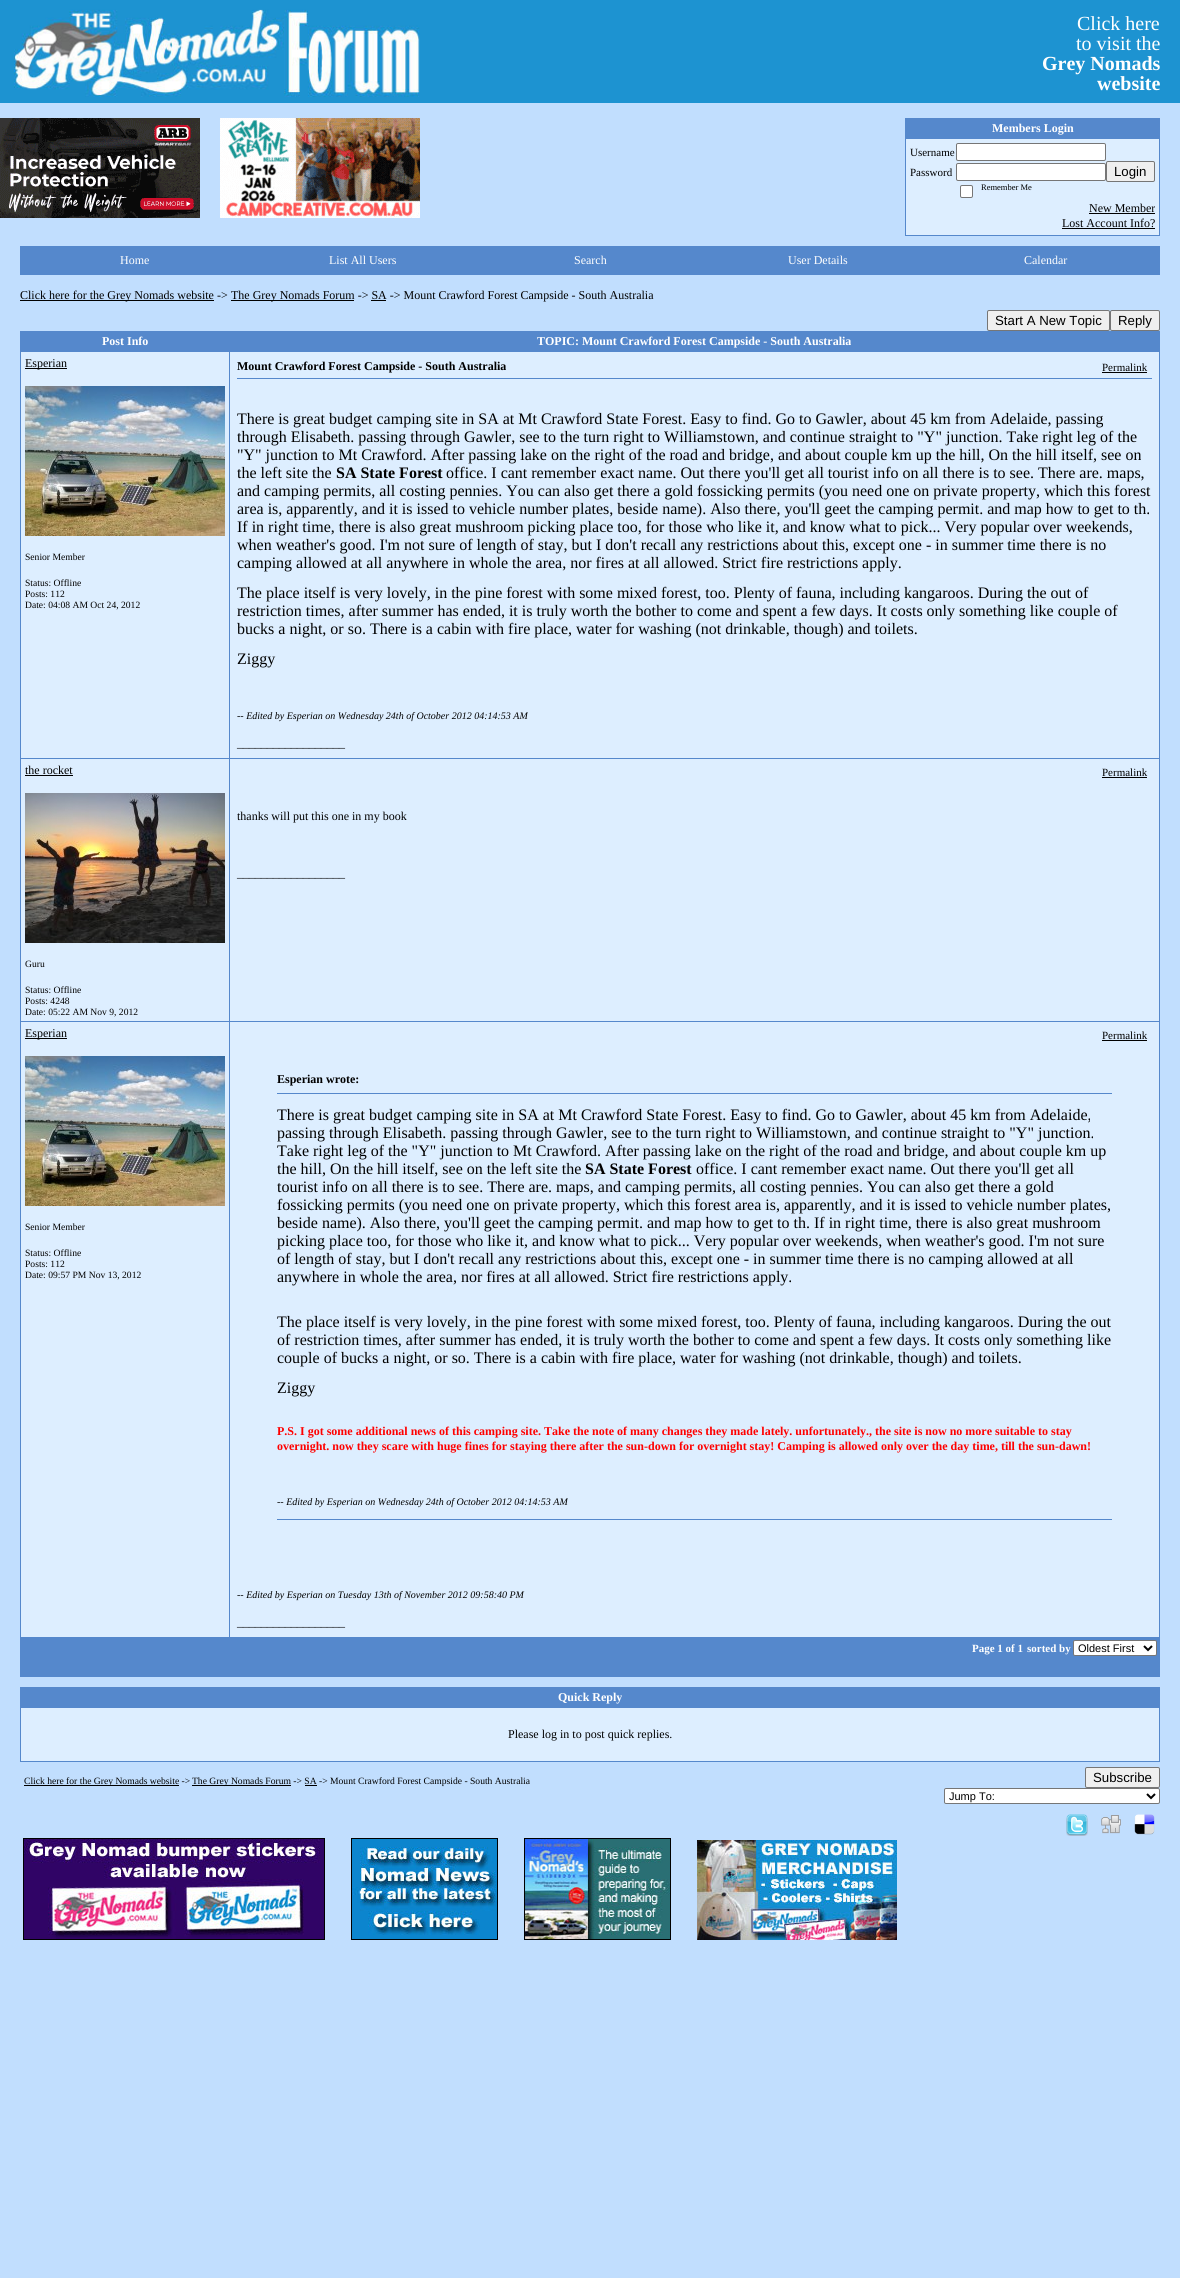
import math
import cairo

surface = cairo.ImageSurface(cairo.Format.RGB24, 1180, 2278)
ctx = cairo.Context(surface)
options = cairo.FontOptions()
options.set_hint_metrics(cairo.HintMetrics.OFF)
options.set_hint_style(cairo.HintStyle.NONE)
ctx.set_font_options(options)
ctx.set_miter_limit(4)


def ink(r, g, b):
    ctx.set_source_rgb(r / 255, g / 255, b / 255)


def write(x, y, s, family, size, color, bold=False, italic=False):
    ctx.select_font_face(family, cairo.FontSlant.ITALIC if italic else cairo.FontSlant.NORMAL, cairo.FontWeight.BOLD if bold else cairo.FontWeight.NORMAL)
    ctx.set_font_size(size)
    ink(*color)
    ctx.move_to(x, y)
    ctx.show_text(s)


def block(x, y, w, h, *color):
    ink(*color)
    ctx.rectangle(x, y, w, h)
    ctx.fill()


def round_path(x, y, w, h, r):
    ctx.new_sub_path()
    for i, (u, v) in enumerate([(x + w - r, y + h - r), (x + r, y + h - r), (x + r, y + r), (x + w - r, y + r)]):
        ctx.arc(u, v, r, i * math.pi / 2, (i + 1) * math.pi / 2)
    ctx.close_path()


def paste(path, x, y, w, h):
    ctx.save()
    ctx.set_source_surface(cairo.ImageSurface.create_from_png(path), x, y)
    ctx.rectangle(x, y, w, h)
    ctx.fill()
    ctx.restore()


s1 = dict(family="Liberation Serif", size=20, color=(255, 255, 255))
s2 = dict(family="Liberation Serif", size=20, color=(255, 255, 255), bold=True)
s3 = dict(family="Liberation Serif", size=12, color=(255, 255, 255), bold=True)
s4 = dict(family="Liberation Serif", size=11, color=(0, 0, 0))
s5 = dict(family="Liberation Sans", size=13.25, color=(0, 0, 0))
s6 = dict(family="Liberation Serif", size=8.5, color=(0, 0, 0))
s7 = dict(family="Liberation Serif", size=12, color=(0, 0, 0))
s8 = dict(family="Liberation Serif", size=12, color=(255, 255, 255))
s9 = dict(family="Liberation Serif", size=9.6, color=(0, 0, 0))
s10 = dict(family="Liberation Serif", size=12, color=(0, 0, 0), bold=True)
s11 = dict(family="Liberation Serif", size=16, color=(0, 0, 0))
s12 = dict(family="Liberation Serif", size=16, color=(0, 0, 0), bold=True)
s13 = dict(family="Liberation Serif", size=10, color=(0, 0, 0), italic=True)
s14 = dict(family="Liberation Serif", size=12, color=(255, 0, 0), bold=True)
s15 = dict(family="Liberation Serif", size=11, color=(255, 255, 255), bold=True)
s16 = dict(family="Liberation Sans", size=11, color=(0, 0, 0))

ink(193, 222, 254)
ctx.paint()
block(0, 0, 1180, 103, 29, 147, 209)
paste("pic1.png", 14, 9, 406, 88)
write(1077, 30, "Click here", **s1)
write(1076, 50, "to visit the", **s1)
write(1042, 70, "Grey Nomads", **s2)
write(1097, 90, "website", **s2)
paste("pic2.png", 0, 118, 200, 100)
paste("pic3.png", 220, 118, 200, 100)
block(905, 118, 255, 1, 85, 136, 204)
block(1159, 118, 1, 118, 85, 136, 204)
block(905, 235, 255, 1, 85, 136, 204)
block(905, 118, 1, 118, 85, 136, 204)
block(906, 119, 253, 19, 85, 136, 204)
block(905, 138, 255, 1, 85, 136, 204)
write(992, 132, "Members Login", **s3)
block(906, 139, 253, 96, 221, 238, 255)
write(910, 156, "Username", **s4)
ink(255, 255, 255)
round_path(956.5, 143.5, 149, 17, 1.5)
ctx.fill_preserve()
ink(118, 118, 118)
ctx.set_line_width(1)
ctx.stroke()
write(910, 176, "Password", **s4)
ink(255, 255, 255)
round_path(956.5, 163.5, 149, 17, 1.5)
ctx.fill_preserve()
ink(118, 118, 118)
ctx.stroke()
ink(239, 239, 239)
round_path(1106.5, 161.5, 48, 20, 1.5)
ctx.fill_preserve()
ink(118, 118, 118)
ctx.stroke()
write(1114, 176, "Login", **s5)
ink(255, 255, 255)
round_path(960.5, 185.5, 12, 12, 1.5)
ctx.fill_preserve()
ink(118, 118, 118)
ctx.stroke()
write(981, 190, "Remember Me", **s6)
write(1089, 212, "New Member", **s7)
block(1089, 213, 66, 1, 0, 0, 0)
write(1062, 227, "Lost Account Info?", **s7)
block(1062, 228, 93, 1, 0, 0, 0)
ctx.rectangle(20.5, 246.5, 1139, 28)
ink(85, 136, 204)
ctx.stroke()
block(21, 247, 1138, 27, 85, 136, 204)
write(120, 264, "Home", **s8)
write(329, 264, "List All Users", **s8)
write(574, 264, "Search", **s8)
write(788, 264, "User Details", **s8)
write(1024, 264, "Calendar", **s8)
block(20, 300, 194, 1, 0, 0, 0)
write(20, 299, "Click here for the Grey Nomads website ->", **s7)
block(231, 300, 123, 1, 0, 0, 0)
write(231, 299, "The Grey Nomads Forum -> SA -> Mount Crawford Forest Campside - South Australia", **s7)
block(371, 300, 15, 1, 0, 0, 0)
ink(239, 239, 239)
round_path(987.5, 310.5, 122, 20, 1.5)
ctx.fill_preserve()
ink(118, 118, 118)
ctx.stroke()
write(995, 325, "Start A New Topic", **s5)
ink(239, 239, 239)
round_path(1110.5, 310.5, 49, 20, 1.5)
ctx.fill_preserve()
ink(118, 118, 118)
ctx.stroke()
write(1118, 325, "Reply", **s5)
block(20, 331, 1140, 1, 85, 136, 204)
block(1159, 331, 1, 1346, 85, 136, 204)
block(20, 1676, 1140, 1, 85, 136, 204)
block(20, 331, 1, 1346, 85, 136, 204)
block(21, 332, 1138, 19, 85, 136, 204)
write(102, 345, "Post Info", **s3)
write(537, 345, "TOPIC: Mount Crawford Forest Campside - South Australia", **s3)
block(21, 352, 208, 406, 221, 238, 255)
block(229, 351, 931, 1, 85, 136, 204)
block(229, 758, 931, 1, 85, 136, 204)
block(229, 1021, 931, 1, 85, 136, 204)
block(20, 1637, 1140, 1, 85, 136, 204)
block(229, 1021, 1, 617, 85, 136, 204)
block(20, 1021, 210, 1, 85, 136, 204)
block(229, 758, 1, 264, 85, 136, 204)
block(20, 758, 210, 1, 85, 136, 204)
block(229, 351, 1, 408, 85, 136, 204)
block(20, 351, 210, 1, 85, 136, 204)
block(25, 368, 42, 1, 0, 0, 0)
write(25, 367, "Esperian", **s7)
paste("pic4.png", 25, 386, 200, 150)
write(25, 560, "Senior Member", **s9)
write(25, 586, "Status: Offline", **s9)
write(25, 597, "Posts: 112", **s9)
write(25, 608, "Date: 04:08 AM Oct 24, 2012", **s9)
block(230, 352, 929, 406, 221, 238, 255)
write(237, 370, "Mount Crawford Forest Campside - South Australia", **s10)
write(1102, 371, "Permalink", **s4)
block(1102, 372, 45, 1, 0, 0, 0)
block(237, 378, 915, 1, 85, 136, 204)
write(237, 424, "There is great budget camping site in SA at Mt Crawford State Forest. Easy to find. Go to Gawler, about 45 km from Adelaide, passing", **s11)
write(237, 442, "through Elisabeth. passing through Gawler, see to the turn right to Williamstown, and continue straight to \"Y\" junction. Take right leg of the", **s11)
write(237, 460, "\"Y\" junction to Mt Crawford. After passing lake on the right of the road and bridge, and about couple km up the hill, On the hill itself, see on", **s11)
write(237, 478, "the left site the", **s11)
write(336, 478, "SA State Forest", **s12)
write(446, 478, "office. I cant remember exact name. Out there you'll get all tourist info on all there is to see. There are. maps,", **s11)
write(237, 496, "and camping permits, all costing pennies. You can also get there a gold fossicking permits (you need one on private property, which this forest", **s11)
write(237, 514, "area is, apparently, and it is issed to vehicle number plates, beside name). Also there, you'll geet the camping permit. and map how to get to th.", **s11)
write(237, 532, "If in right time, there is also great mushroom picking place too, for those who like it, and know what to pick... Very popular over weekends,", **s11)
write(237, 550, "when weather's good. I'm not sure of length of stay, but I don't recall any restrictions about this, except one - in summer time there is no", **s11)
write(237, 568, "camping allowed at all anywhere in whole the area, nor fires at all allowed. Strict fire restrictions apply.", **s11)
write(237, 598, "The place itself is very lovely, in the pine forest with some mixed forest, too. Plenty of fauna, including kangaroos. During the out of", **s11)
write(237, 616, "restriction times, after summer has ended, it is truly worth the bother to come and spent a few days. It costs only something like couple of", **s11)
write(237, 634, "bucks a night, or so. There is a cabin with fire place, water for washing (not drinkable, though) and toilets.", **s11)
write(237, 664, "Ziggy", **s11)
write(237, 719, "-- Edited by Esperian on Wednesday 24th of October 2012 04:14:53 AM", **s13)
write(237, 747, "__________________", **s7)
block(21, 759, 208, 262, 221, 238, 255)
write(25, 774, "the rocket", **s7)
block(25, 775, 48, 1, 0, 0, 0)
paste("pic5.png", 25, 793, 200, 150)
write(25, 967, "Guru", **s9)
write(25, 993, "Status: Offline", **s9)
write(25, 1004, "Posts: 4248", **s9)
write(25, 1015, "Date: 05:22 AM Nov 9, 2012", **s9)
block(230, 759, 929, 262, 221, 238, 255)
write(1102, 776, "Permalink", **s4)
block(1102, 777, 45, 1, 0, 0, 0)
write(237, 820, "thanks will put this one in my book", **s7)
write(237, 877, "__________________", **s7)
block(21, 1022, 208, 615, 221, 238, 255)
block(25, 1038, 42, 1, 0, 0, 0)
write(25, 1037, "Esperian", **s7)
paste("pic4.png", 25, 1056, 200, 150)
write(25, 1230, "Senior Member", **s9)
write(25, 1256, "Status: Offline", **s9)
write(25, 1267, "Posts: 112", **s9)
write(25, 1278, "Date: 09:57 PM Nov 13, 2012", **s9)
block(230, 1022, 929, 615, 221, 238, 255)
write(1102, 1039, "Permalink", **s4)
block(1102, 1040, 45, 1, 0, 0, 0)
write(277, 1083, "Esperian wrote:", **s10)
block(277, 1093, 835, 1, 85, 136, 204)
write(277, 1120, "There is great budget camping site in SA at Mt Crawford State Forest. Easy to find. Go to Gawler, about 45 km from Adelaide,", **s11)
write(277, 1138, "passing through Elisabeth. passing through Gawler, see to the turn right to Williamstown, and continue straight to \"Y\" junction.", **s11)
write(277, 1156, "Take right leg of the \"Y\" junction to Mt Crawford. After passing lake on the right of the road and bridge, and about couple km up", **s11)
write(277, 1174, "the hill, On the hill itself, see on the left site the", **s11)
write(585, 1174, "SA State Forest", **s12)
write(696, 1174, "office. I cant remember exact name. Out there you'll get all", **s11)
write(277, 1192, "tourist info on all there is to see. There are. maps, and camping permits, all costing pennies. You can also get there a gold", **s11)
write(277, 1210, "fossicking permits (you need one on private property, which this forest area is, apparently, and it is issed to vehicle number plates,", **s11)
write(277, 1228, "beside name). Also there, you'll geet the camping permit. and map how to get to th. If in right time, there is also great mushroom", **s11)
write(277, 1246, "picking place too, for those who like it, and know what to pick... Very popular over weekends, when weather's good. I'm not sure", **s11)
write(277, 1264, "of length of stay, but I don't recall any restrictions about this, except one - in summer time there is no camping allowed at all", **s11)
write(277, 1282, "anywhere in whole the area, nor fires at all allowed. Strict fire restrictions apply.", **s11)
write(277, 1327, "The place itself is very lovely, in the pine forest with some mixed forest, too. Plenty of fauna, including kangaroos. During the out", **s11)
write(277, 1345, "of restriction times, after summer has ended, it is truly worth the bother to come and spent a few days. It costs only something like", **s11)
write(277, 1363, "couple of bucks a night, or so. There is a cabin with fire place, water for washing (not drinkable, though) and toilets.", **s11)
write(277, 1393, "Ziggy", **s11)
write(277, 1435, "P.S. I got some additional news of this camping site. Take the note of many changes they made lately. unfortunately., the site is now no more suitable to stay", **s14)
write(277, 1450, "overnight. now they scare with huge fines for staying there after the sun-down for overnight stay! Camping is allowed only over the day time, till the sun-dawn!", **s14)
write(277, 1505, "-- Edited by Esperian on Wednesday 24th of October 2012 04:14:53 AM", **s13)
block(277, 1519, 835, 1, 85, 136, 204)
write(237, 1598, "-- Edited by Esperian on Tuesday 13th of November 2012 09:58:40 PM", **s13)
write(237, 1626, "__________________", **s7)
block(21, 1638, 1138, 38, 85, 136, 204)
write(972, 1652, "Page 1 of 1", **s15)
write(1027, 1652, "sorted by", **s15)
round_path(1073.5, 1640.5, 83, 15, 1.5)
ctx.fill_preserve()
ink(118, 118, 118)
ctx.stroke()
ctx.new_path()
ctx.move_to(1144, 1646)
ctx.line_to(1148, 1650)
ctx.line_to(1152, 1646)
ink(0, 0, 0)
ctx.set_line_width(2)
ctx.stroke()
write(1078, 1652, "Oldest First", **s16)
block(20, 1687, 1140, 1, 85, 136, 204)
block(1159, 1687, 1, 75, 85, 136, 204)
block(20, 1761, 1140, 1, 85, 136, 204)
block(20, 1687, 1, 75, 85, 136, 204)
block(21, 1688, 1138, 19, 85, 136, 204)
block(20, 1707, 1140, 1, 85, 136, 204)
write(558, 1701, "Quick Reply", **s3)
block(21, 1708, 1138, 53, 221, 238, 255)
write(508, 1738, "Please log in to post quick replies.", **s7)
block(24, 1785, 155, 1, 0, 0, 0)
write(24, 1784, "Click here for the Grey Nomads website ->", **s9)
block(192, 1785, 99, 1, 0, 0, 0)
write(192, 1784, "The Grey Nomads Forum -> SA -> Mount Crawford Forest Campside - South Australia", **s9)
block(305, 1785, 12, 1, 0, 0, 0)
ink(239, 239, 239)
round_path(1085.5, 1767.5, 74, 20, 1.5)
ctx.fill_preserve()
ink(118, 118, 118)
ctx.set_line_width(1)
ctx.stroke()
write(1093, 1782, "Subscribe", **s5)
ink(255, 255, 255)
round_path(944.5, 1788.5, 215, 15, 1.5)
ctx.fill_preserve()
ink(118, 118, 118)
ctx.stroke()
ctx.new_path()
ctx.move_to(1147, 1794)
ctx.line_to(1151, 1798)
ctx.line_to(1155, 1794)
ink(0, 0, 0)
ctx.set_line_width(2)
ctx.stroke()
write(949, 1800, "Jump To:", **s16)
paste("pic6.png", 1066, 1814, 22, 22)
paste("pic7.png", 1101, 1815, 20, 19)
paste("pic8.png", 1134, 1814, 21, 21)
ctx.rectangle(23.5, 1838.5, 301, 101)
ctx.set_line_width(1)
ctx.stroke()
ctx.rectangle(351.5, 1838.5, 146, 101)
ctx.stroke()
ctx.rectangle(524.5, 1838.5, 146, 101)
ctx.stroke()
paste("pic9.png", 24, 1839, 300, 100)
paste("pic10.png", 352, 1839, 145, 100)
paste("pic11.png", 525, 1839, 145, 100)
paste("pic12.png", 697, 1840, 200, 100)
surface.write_to_png("screenshot.png")
